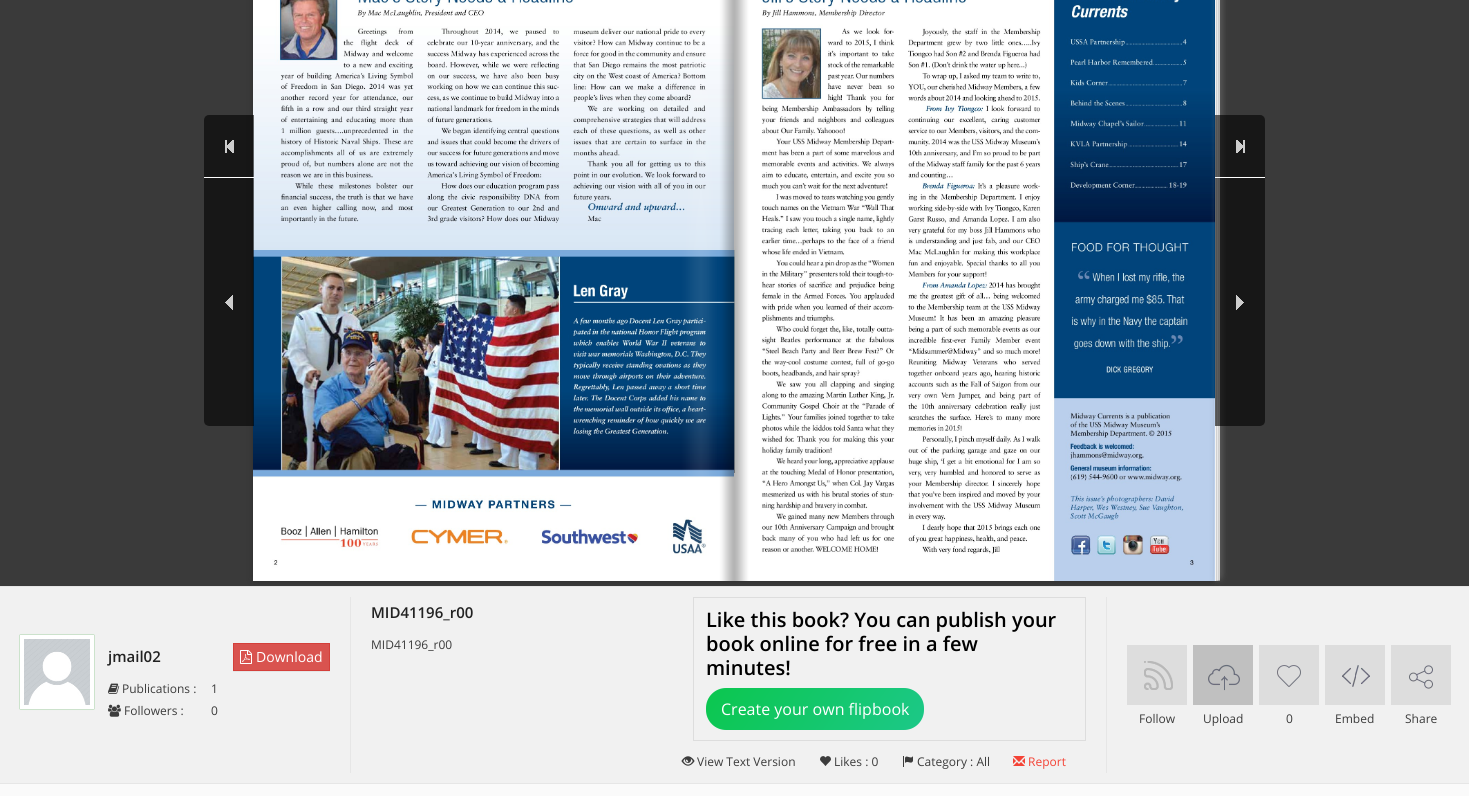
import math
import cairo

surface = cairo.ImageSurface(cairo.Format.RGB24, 1469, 796)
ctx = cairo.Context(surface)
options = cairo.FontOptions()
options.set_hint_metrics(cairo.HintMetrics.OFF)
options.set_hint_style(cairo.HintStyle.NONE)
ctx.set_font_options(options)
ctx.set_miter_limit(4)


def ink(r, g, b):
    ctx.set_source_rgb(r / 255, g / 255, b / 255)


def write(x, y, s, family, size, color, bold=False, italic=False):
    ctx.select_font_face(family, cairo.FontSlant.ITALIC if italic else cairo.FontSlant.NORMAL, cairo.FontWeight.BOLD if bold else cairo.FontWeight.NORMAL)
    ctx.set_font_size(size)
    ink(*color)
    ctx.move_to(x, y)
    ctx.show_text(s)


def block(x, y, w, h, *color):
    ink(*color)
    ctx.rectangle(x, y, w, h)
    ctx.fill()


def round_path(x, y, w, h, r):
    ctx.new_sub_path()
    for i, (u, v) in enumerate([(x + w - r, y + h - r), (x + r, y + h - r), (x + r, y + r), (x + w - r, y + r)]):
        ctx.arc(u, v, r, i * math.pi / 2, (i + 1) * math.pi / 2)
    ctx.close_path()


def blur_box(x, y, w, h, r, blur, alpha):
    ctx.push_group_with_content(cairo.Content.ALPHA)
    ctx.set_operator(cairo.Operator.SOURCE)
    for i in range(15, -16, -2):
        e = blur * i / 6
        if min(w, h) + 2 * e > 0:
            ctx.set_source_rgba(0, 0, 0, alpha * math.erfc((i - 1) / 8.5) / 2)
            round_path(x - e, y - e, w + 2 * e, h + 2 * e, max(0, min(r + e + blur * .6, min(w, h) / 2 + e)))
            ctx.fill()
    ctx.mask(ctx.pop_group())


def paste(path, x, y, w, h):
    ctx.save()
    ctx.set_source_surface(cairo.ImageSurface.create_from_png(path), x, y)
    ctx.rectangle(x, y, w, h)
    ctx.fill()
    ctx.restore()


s1 = dict(family="Open Sans SemiBold", size=15, color=(34, 34, 34))
s2 = dict(family="Open Sans", size=14, color=(255, 255, 255))
s3 = dict(family="Open Sans", size=12, color=(60, 60, 60))
s4 = dict(family="Open Sans SemiBold", size=20, color=(0, 0, 0))
s5 = dict(family="Open Sans", size=16, color=(255, 255, 255))
s6 = dict(family="Open Sans", size=12, color=(244, 67, 54))

ink(255, 255, 255)
ctx.paint()
paste("pic1.png", 0, 0, 1469, 586)
block(0, 784, 1469, 12, 250, 250, 250)
block(0, 587, 1469, 196, 241, 241, 241)
block(0, 586, 1469, 1, 230, 230, 230)
block(0, 783, 1469, 1, 230, 230, 230)
ink(92, 184, 92)
blur_box(20, 635, 74, 74, 0, 0.5, 1)
ctx.rectangle(22, 637, 70, 70)
ink(255, 255, 255)
ctx.set_line_width(4)
ctx.stroke()
paste("pic2.png", 24, 639, 66, 66)
write(108, 662, "jmail02", **s1)
block(233, 671, 97, 1, 229, 229, 229)
ink(217, 83, 79)
ctx.rectangle(233.5, 643.5, 96, 27)
ctx.fill_preserve()
ink(212, 63, 58)
ctx.set_line_width(1)
ctx.stroke()
paste("pic3.png", 240, 650, 12, 14)
write(256, 662, "Download", **s2)
paste("pic4.png", 108, 683, 12, 11)
write(122, 693, "Publications :", **s3)
write(211, 693, "1", **s3)
paste("pic5.png", 108, 704, 13, 13)
write(124, 715, "Followers :", **s3)
write(211, 715, "0", **s3)
block(1106, 597, 1, 176, 230, 230, 230)
block(350, 597, 1, 176, 230, 230, 230)
write(371, 618, "MID41196_r00", **s1)
write(371, 649, "MID41196_r00", **s3)
ctx.rectangle(693.5, 597.5, 392, 143)
ink(221, 221, 221)
ctx.stroke()
write(706, 627, "Like this book? You can publish your", **s4)
write(706, 651, "book online for free in a few", **s4)
write(706, 675, "minutes!", **s4)
gradient = cairo.LinearGradient(732, 651, 898, 767)
gradient.add_color_stop_rgba(0, 0.043, 0.78, 0.306, 1)
gradient.add_color_stop_rgba(1, 0.11, 0.784, 0.533, 1)
ctx.set_source(gradient)
round_path(706, 688, 218, 42, 20)
ctx.fill()
write(721, 715, "Create your own flipbook", **s5)
paste("pic6.png", 681, 756, 14, 10)
write(697, 766, "View Text Version", **s3)
paste("pic7.png", 820, 756, 11, 10)
write(834, 766, "Likes : 0", **s3)
paste("pic8.png", 903, 756, 10, 11)
write(917, 766, "Category : All", **s3)
paste("pic9.png", 1013, 756, 12, 10)
write(1028, 766, "Report", **s6)
block(1127, 645, 60, 60, 221, 221, 221)
paste("pic10.png", 1144, 661, 29, 29)
write(1139, 723, "Follow", **s3)
block(1193, 645, 60, 60, 192, 192, 192)
paste("pic11.png", 1208, 664, 32, 27)
write(1203, 723, "Upload", **s3)
block(1259, 645, 60, 60, 221, 221, 221)
paste("pic12.png", 1277, 665, 24, 22)
write(1286, 723, "0", **s3)
block(1325, 645, 60, 60, 221, 221, 221)
paste("pic13.png", 1342, 665, 28, 22)
write(1335, 723, "Embed", **s3)
block(1391, 645, 60, 60, 221, 221, 221)
paste("pic14.png", 1409, 665, 24, 24)
write(1405, 723, "Share", **s3)
surface.write_to_png("screenshot.png")
